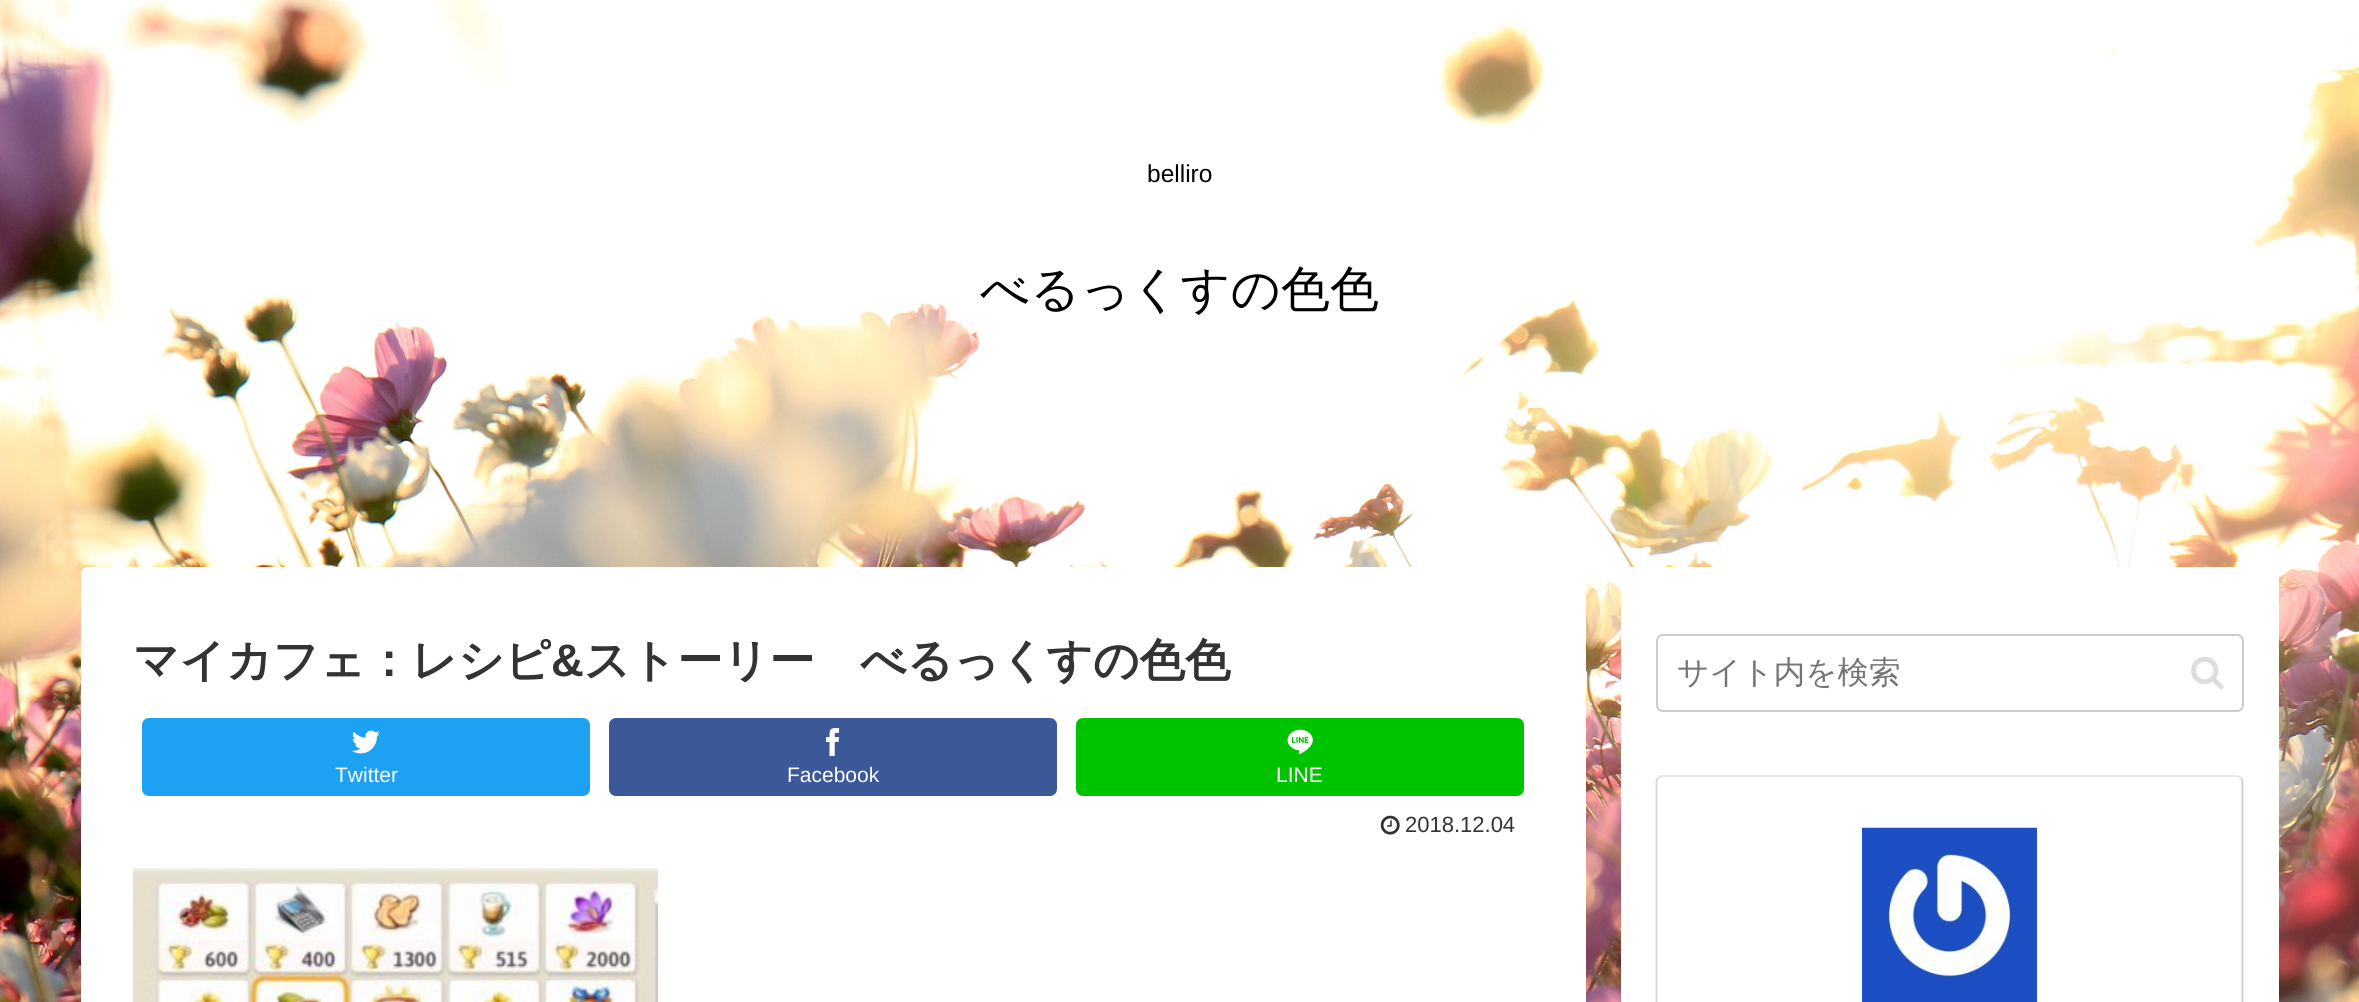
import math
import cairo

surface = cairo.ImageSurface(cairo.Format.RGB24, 2359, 1002)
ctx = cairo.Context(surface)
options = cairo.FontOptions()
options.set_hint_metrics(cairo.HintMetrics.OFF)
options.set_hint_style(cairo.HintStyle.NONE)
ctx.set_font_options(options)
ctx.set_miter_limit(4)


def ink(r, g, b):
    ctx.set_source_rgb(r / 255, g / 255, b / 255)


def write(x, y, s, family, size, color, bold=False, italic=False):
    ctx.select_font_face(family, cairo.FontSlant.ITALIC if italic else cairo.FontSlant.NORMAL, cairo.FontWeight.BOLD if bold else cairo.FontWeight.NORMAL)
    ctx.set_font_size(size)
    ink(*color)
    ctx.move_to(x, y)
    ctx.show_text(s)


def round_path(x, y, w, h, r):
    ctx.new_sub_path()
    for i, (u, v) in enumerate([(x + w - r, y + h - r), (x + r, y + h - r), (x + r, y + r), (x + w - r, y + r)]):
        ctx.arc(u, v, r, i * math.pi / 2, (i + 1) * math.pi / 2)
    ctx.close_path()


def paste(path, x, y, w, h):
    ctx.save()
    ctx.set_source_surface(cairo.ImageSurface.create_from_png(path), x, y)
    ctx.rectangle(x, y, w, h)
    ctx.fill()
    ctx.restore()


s1 = dict(family="Liberation Sans", size=24.5, color=(0, 0, 0))
s2 = dict(family="WenQuanYi Zen Hei Medium", size=49, color=(0, 0, 0))
s3 = dict(family="WenQuanYi Zen Hei", size=45.5, color=(51, 51, 51), bold=True)
s4 = dict(family="Liberation Sans", size=45.5, color=(51, 51, 51), bold=True)
s5 = dict(family="Liberation Sans", size=21, color=(255, 255, 255))
s6 = dict(family="Liberation Sans", size=22, color=(51, 51, 51))
s7 = dict(family="WenQuanYi Zen Hei Medium", size=31.5, color=(117, 117, 117))

ink(255, 255, 255)
ctx.paint()
paste("pic1.png", 0, 525, 2359, 477)
paste("pic2.png", 0, 0, 2359, 525)
write(1147, 182, "belliro", **s1)
write(980, 306, "べるっくすの色色", **s2)
ink(255, 255, 255)
round_path(81, 567, 1505, 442, 7)
ctx.fill()
write(133, 676, "マイカフェ：レシピ", **s3)
write(551, 676, "&", **s4)
write(584, 676, "ストーリー　べるっくすの色色", **s3)
ink(29, 161, 242)
round_path(142, 718, 448, 78, 7)
ctx.fill()
paste("pic3.png", 352, 730, 28, 24)
write(335, 782, "Twitter", **s5)
ink(59, 89, 152)
round_path(609, 718, 448, 78, 7)
ctx.fill()
paste("pic4.png", 826, 728, 14, 28)
write(787, 782, "Facebook", **s5)
ink(0, 195, 0)
round_path(1076, 718, 448, 78, 7)
ctx.fill()
paste("pic5.png", 1287, 729, 26, 26)
write(1276, 782, "LINE", **s5)
paste("pic6.png", 1380, 815, 20, 20)
write(1405, 832, "2018.12.04", **s6)
paste("pic7.png", 133, 868, 525, 134)
ink(255, 255, 255)
round_path(1621, 567, 658, 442, 7)
ctx.fill()
round_path(1657, 635, 586, 76, 6)
ink(204, 204, 204)
ctx.stroke()
write(1677, 683, "サイト内を検索", **s7)
paste("pic8.png", 2191, 656, 33, 34)
ctx.new_path()
ctx.move_to(1658, 778)
ctx.curve_to(1659.5, 777, 1661, 776, 1662.5, 776)
ctx.line_to(2236.5, 776)
ctx.curve_to(2238, 776, 2239.5, 777, 2241, 778)
ink(227, 227, 227)
ctx.set_line_width(1.8)
ctx.stroke()
ctx.new_path()
ctx.move_to(2241, 778)
ctx.curve_to(2242, 779, 2242.5, 780.5, 2242.5, 782)
ctx.line_to(2242.5, 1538)
ctx.curve_to(2242.5, 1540, 2242, 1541.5, 2241, 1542.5)
ink(206, 206, 206)
ctx.stroke()
ctx.new_path()
ctx.move_to(1658, 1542.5)
ctx.curve_to(1657, 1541.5, 1656.5, 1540, 1656.5, 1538)
ctx.line_to(1656.5, 782)
ctx.curve_to(1656.5, 780.5, 1657, 779, 1658, 778)
ink(214, 214, 214)
ctx.stroke()
paste("pic9.png", 1862, 827, 175, 175)
surface.write_to_png("screenshot.png")
